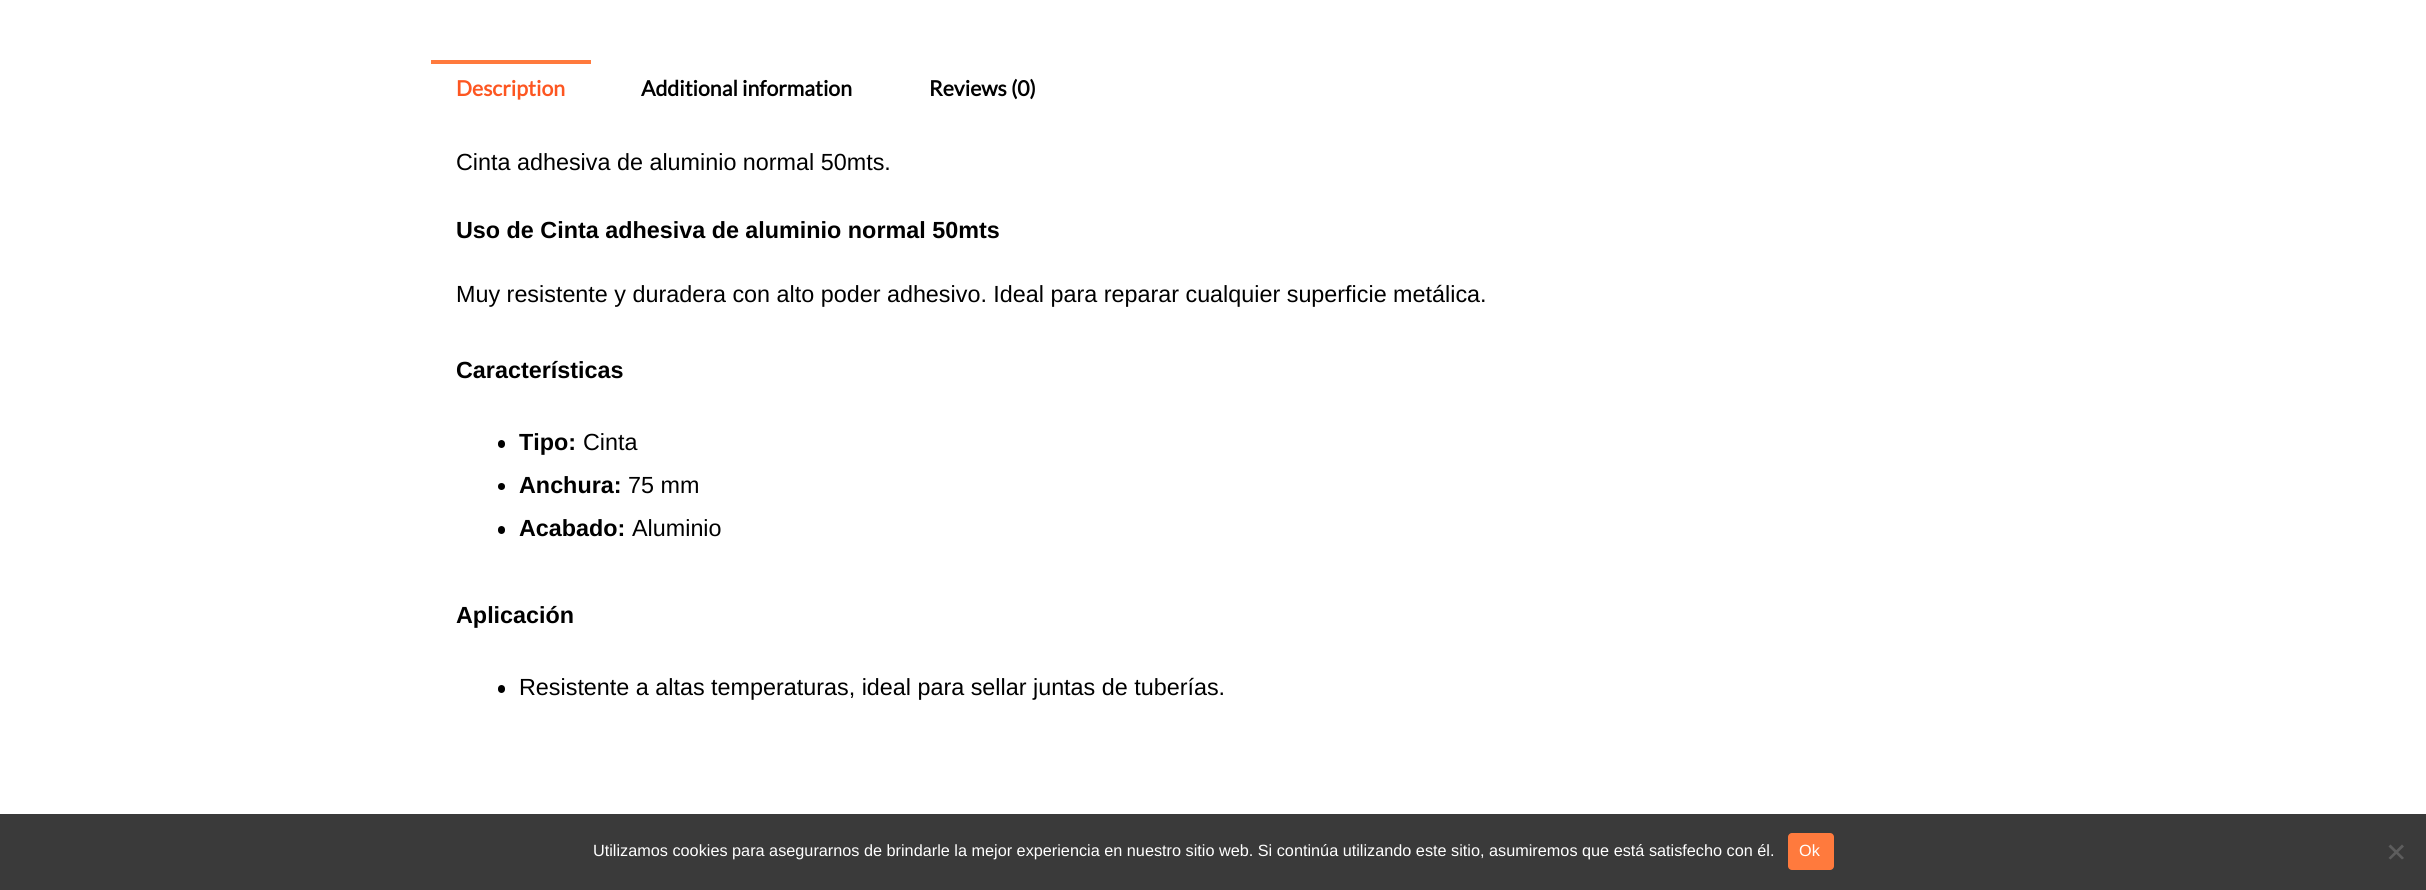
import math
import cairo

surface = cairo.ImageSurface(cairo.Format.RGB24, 2426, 890)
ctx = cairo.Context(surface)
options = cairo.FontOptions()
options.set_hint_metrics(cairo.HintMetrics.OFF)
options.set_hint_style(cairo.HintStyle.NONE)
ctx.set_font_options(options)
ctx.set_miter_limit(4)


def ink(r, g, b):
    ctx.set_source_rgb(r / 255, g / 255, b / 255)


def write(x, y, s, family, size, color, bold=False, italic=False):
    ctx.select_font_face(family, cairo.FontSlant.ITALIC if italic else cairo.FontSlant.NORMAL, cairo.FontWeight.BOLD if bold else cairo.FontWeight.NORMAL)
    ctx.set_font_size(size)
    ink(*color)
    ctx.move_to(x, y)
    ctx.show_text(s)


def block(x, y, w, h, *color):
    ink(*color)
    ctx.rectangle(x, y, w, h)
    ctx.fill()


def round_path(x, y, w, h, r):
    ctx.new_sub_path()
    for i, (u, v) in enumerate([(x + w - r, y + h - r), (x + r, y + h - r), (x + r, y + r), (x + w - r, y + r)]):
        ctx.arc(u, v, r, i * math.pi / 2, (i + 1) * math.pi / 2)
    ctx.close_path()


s1 = dict(family="Lato", size=21.25, color=(253, 86, 33), bold=True)
s2 = dict(family="Lato", size=21.25, color=(0, 0, 0), bold=True)
s3 = dict(family="Liberation Sans", size=23.35, color=(0, 0, 0))
s4 = dict(family="Liberation Sans", size=23.35, color=(0, 0, 0), bold=True)
s5 = dict(family="Liberation Sans", size=16.25, color=(255, 255, 255))

ink(255, 255, 255)
ctx.paint()
block(431, 60, 160, 4, 255, 122, 61)
write(456, 96, "Description", **s1)
write(641, 96, "Additional information", **s2)
write(929, 96, "Reviews (0)", **s2)
write(456, 170, "Cinta adhesiva de aluminio normal 50mts.", **s3)
write(456, 238, "Uso de Cinta adhesiva de aluminio normal 50mts", **s4)
write(456, 302, "Muy resistente y duradera con alto poder adhesivo. Ideal para reparar cualquier superficie metálica.", **s3)
write(456, 378, "Características", **s4)
round_path(498, 440, 7, 8, 3.5)
ctx.fill()
write(519, 450, "Tipo:", **s4)
write(583, 450, "Cinta", **s3)
ctx.new_path()
ctx.arc(501.5, 486.5, 3.5, 0, 2 * math.pi)
ctx.fill()
write(519, 493, "Anchura:", **s4)
write(628, 493, "75 mm", **s3)
round_path(498, 526, 7, 8, 3.5)
ctx.fill()
write(519, 536, "Acabado:", **s4)
write(632, 536, "Aluminio", **s3)
write(456, 623, "Aplicación", **s4)
round_path(498, 685, 7, 8, 3.5)
ctx.fill()
write(519, 695, "Resistente a altas temperaturas, ideal para sellar juntas de tuberías.", **s3)
block(0, 814, 2426, 76, 58, 58, 58)
write(593, 856, "Utilizamos cookies para asegurarnos de brindarle la mejor experiencia en nuestro sitio web. Si continúa utilizando este sitio, asumiremos que está satisfecho con él.", **s5)
ink(255, 122, 61)
round_path(1788, 833, 46, 37, 4)
ctx.fill()
write(1799, 856, "Ok", **s5)
ink(93, 93, 93)
ctx.new_path()
ctx.move_to(2402, 844.5)
ctx.line_to(2404, 846.5)
ctx.line_to(2390.5, 859.5)
ctx.line_to(2388.5, 858)
ctx.close_path()
ctx.fill()
ctx.new_path()
ctx.move_to(2388.5, 846.5)
ctx.line_to(2390.5, 844.5)
ctx.line_to(2404, 858)
ctx.line_to(2402, 859.5)
ctx.close_path()
ctx.fill()
surface.write_to_png("screenshot.png")
